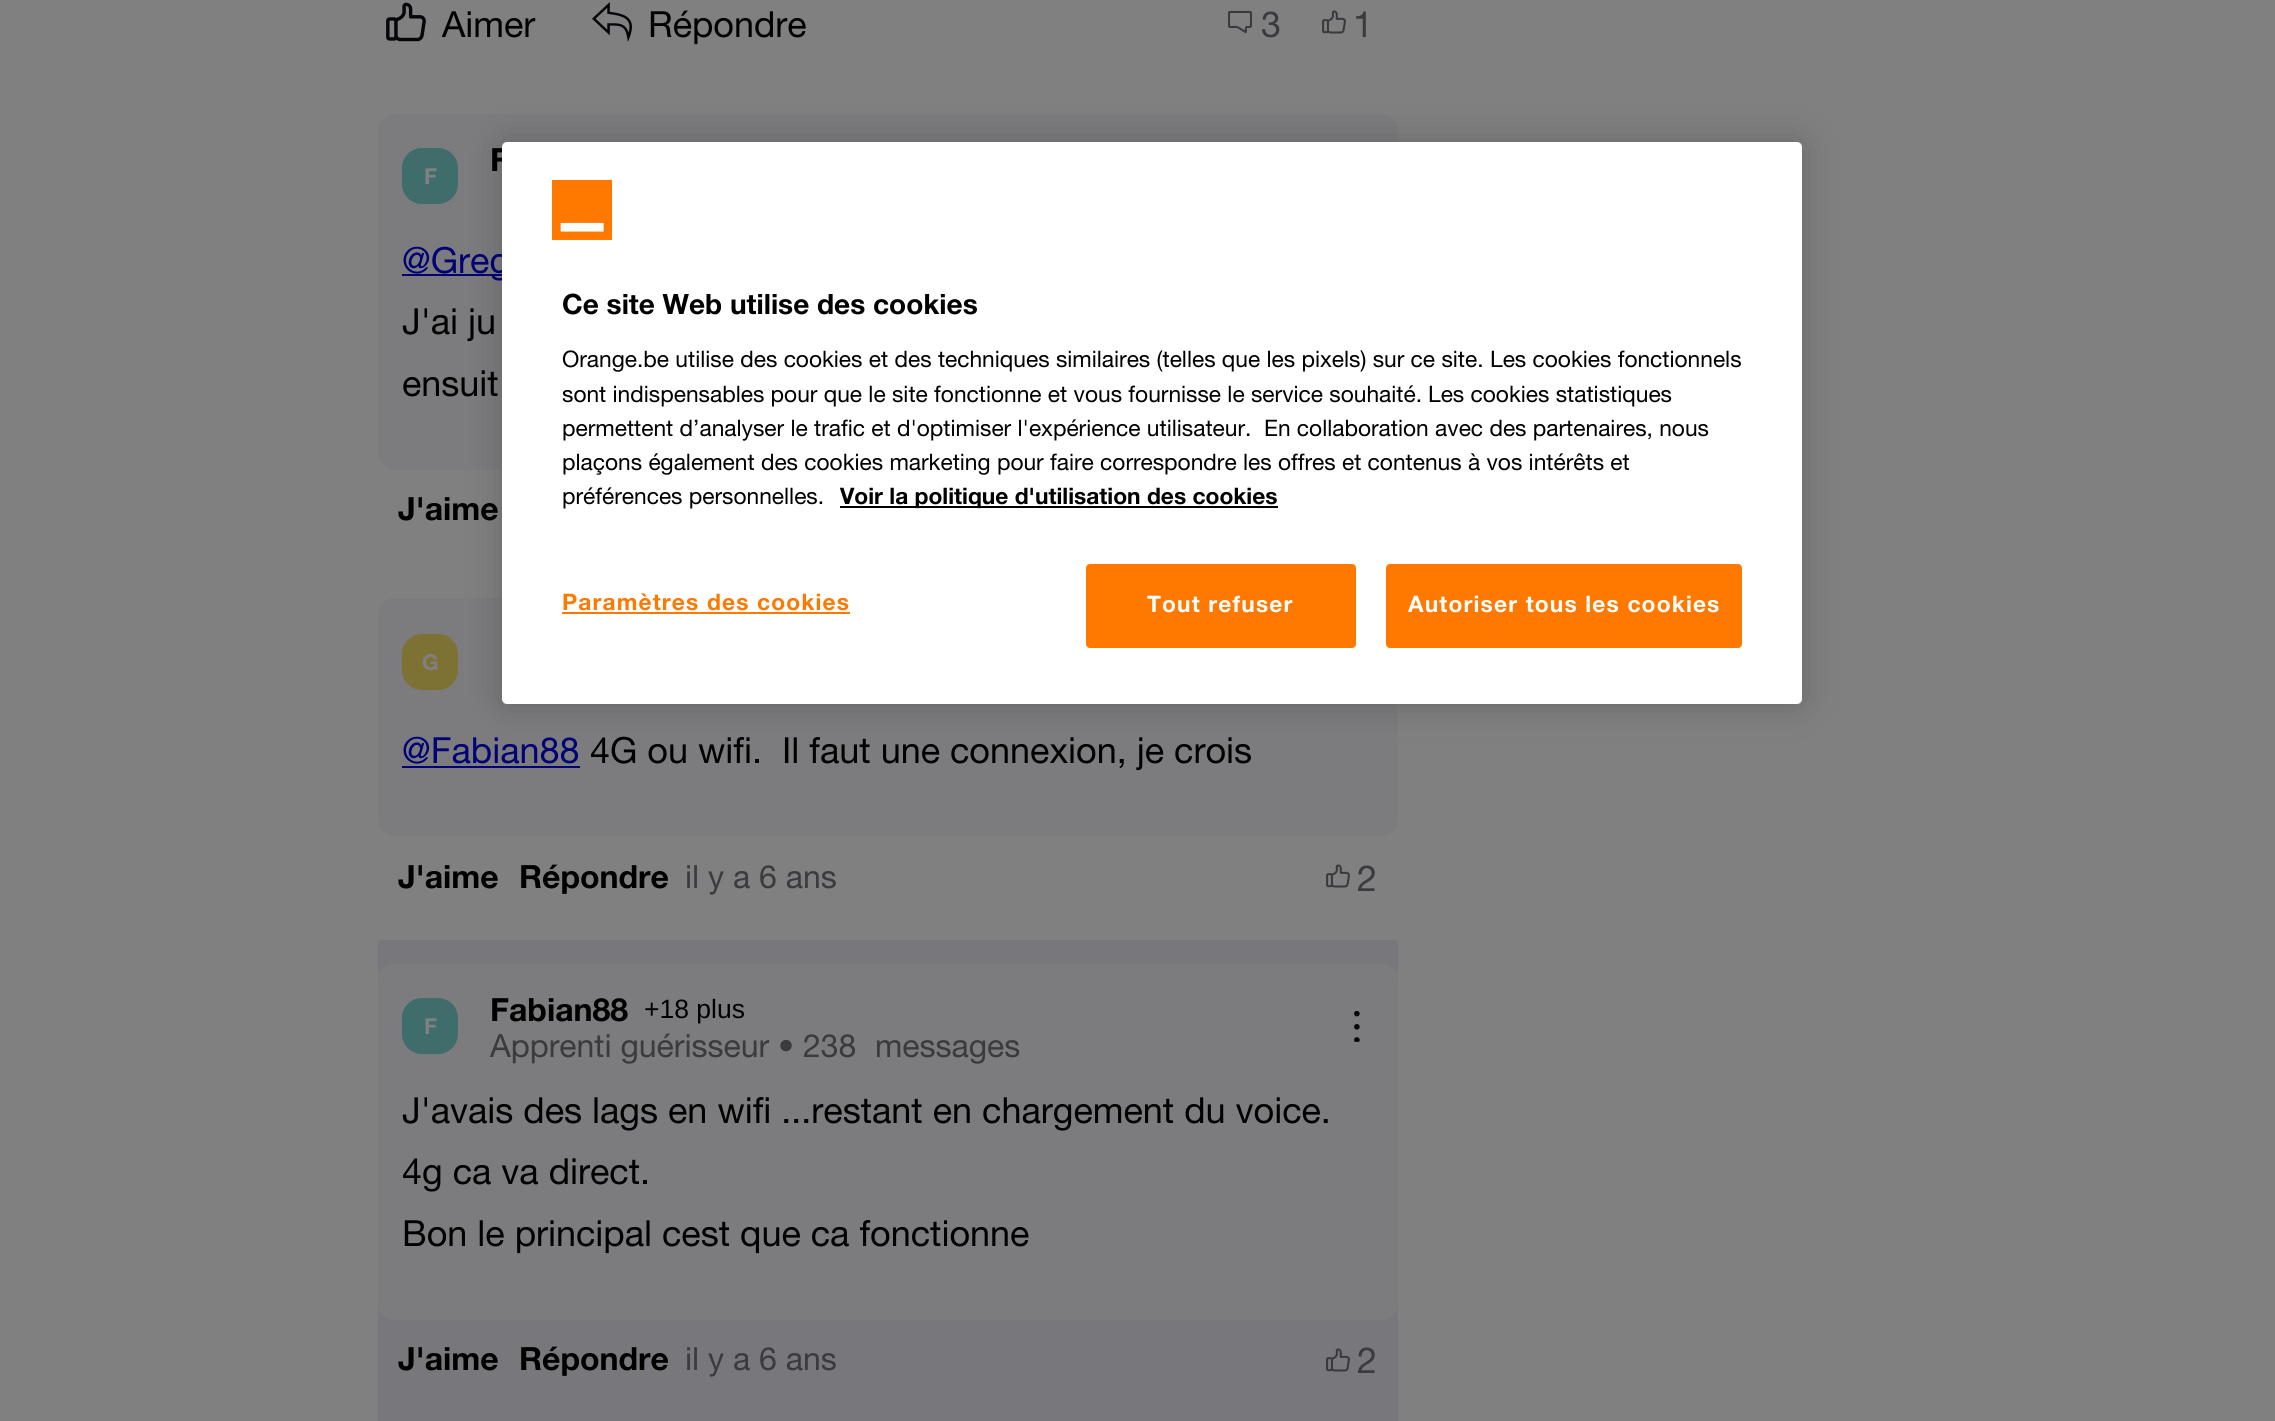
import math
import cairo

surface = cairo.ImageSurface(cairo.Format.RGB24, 2275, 1421)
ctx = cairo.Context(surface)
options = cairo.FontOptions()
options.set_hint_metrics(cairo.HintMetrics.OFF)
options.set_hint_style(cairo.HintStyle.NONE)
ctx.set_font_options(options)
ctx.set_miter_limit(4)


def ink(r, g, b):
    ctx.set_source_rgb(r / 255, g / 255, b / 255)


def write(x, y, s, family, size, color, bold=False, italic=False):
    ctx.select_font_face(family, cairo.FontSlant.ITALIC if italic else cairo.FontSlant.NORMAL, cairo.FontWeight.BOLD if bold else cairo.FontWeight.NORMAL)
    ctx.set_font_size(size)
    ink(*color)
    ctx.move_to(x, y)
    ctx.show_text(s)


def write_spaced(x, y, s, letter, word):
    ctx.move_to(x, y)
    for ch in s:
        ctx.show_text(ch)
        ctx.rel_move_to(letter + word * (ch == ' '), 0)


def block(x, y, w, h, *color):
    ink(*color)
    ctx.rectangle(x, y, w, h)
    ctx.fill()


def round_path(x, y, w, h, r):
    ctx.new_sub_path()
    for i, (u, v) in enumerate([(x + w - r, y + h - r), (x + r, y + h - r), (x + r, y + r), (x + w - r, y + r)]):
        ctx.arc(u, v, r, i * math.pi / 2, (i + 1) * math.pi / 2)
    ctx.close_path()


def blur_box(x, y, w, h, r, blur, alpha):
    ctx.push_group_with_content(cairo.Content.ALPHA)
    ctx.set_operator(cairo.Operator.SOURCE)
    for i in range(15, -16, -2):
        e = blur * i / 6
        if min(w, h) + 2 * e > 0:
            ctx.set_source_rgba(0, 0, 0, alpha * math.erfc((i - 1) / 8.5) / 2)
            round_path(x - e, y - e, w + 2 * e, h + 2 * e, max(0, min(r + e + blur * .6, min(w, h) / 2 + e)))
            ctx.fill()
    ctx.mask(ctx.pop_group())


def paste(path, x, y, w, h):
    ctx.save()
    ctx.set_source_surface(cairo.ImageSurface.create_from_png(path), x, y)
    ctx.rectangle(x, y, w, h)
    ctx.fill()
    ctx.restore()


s1 = dict(family="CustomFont", size=36, color=(0, 0, 0))
s2 = dict(family="CustomFont", size=36, color=(58, 58, 63))
s3 = dict(family="CustomFont", size=32, color=(0, 0, 0), bold=True)
s4 = dict(family="CustomFont", size=22, color=(128, 128, 128), bold=True)
s5 = dict(family="CustomFont", size=36, color=(0, 0, 119))
s6 = dict(family="CustomFont", size=32, color=(58, 58, 63))
s7 = dict(family="Liberation Sans", size=26.5, color=(0, 0, 0))
s8 = dict(family="CustomFont", size=28, color=(0, 0, 0), bold=True)
s9 = dict(family="CustomFont", size=22.75, color=(0, 0, 0))
s10 = dict(family="CustomFont", size=22.75, color=(0, 0, 0), bold=True)

ink(128, 128, 128)
ctx.paint()
paste("pic1.png", 386, 2, 40, 40)
write(442, 37, "Aimer", **s1)
paste("pic2.png", 592, 2, 40, 40)
write(648, 37, "Répondre", **s1)
paste("pic3.png", 1228, 10, 24, 23)
write(1261, 37, "3", **s2)
paste("pic4.png", 1322, 10, 24, 24)
write(1353, 37, "1", **s2)
ink(124, 124, 127)
round_path(378, 114, 1020, 356, 16)
ctx.fill()
write(490, 171, "F", **s3)
ink(63, 109, 107)
round_path(402, 148, 56, 56, 20)
ctx.fill()
write(424, 184, "F", **s4)
block(402, 274, 100, 2, 0, 0, 119)
write(402, 273, "@Greg", **s5)
write(402, 334, "J'ai ju", **s1)
write(402, 396, "ensuit", **s1)
write(398, 520, "J'aime", **s3)
ink(124, 124, 127)
round_path(378, 598, 1020, 238, 16)
ctx.fill()
ink(125, 113, 52)
round_path(402, 634, 56, 56, 20)
ctx.fill()
write(422, 670, "G", **s4)
write(402, 763, "@Fabian88", **s5)
block(402, 766, 178, 2, 0, 0, 119)
write(590, 763, "4G ou wifi.  Il faut une connexion, je crois", **s1)
write(398, 888, "J'aime", **s3)
write(519, 888, "Répondre", **s3)
write(685, 888, "il y a 6 ans", **s6)
paste("pic4.png", 1326, 864, 24, 24)
write(1357, 891, "2", **s2)
block(378, 940, 1020, 481, 120, 120, 124)
ink(124, 124, 127)
round_path(378, 964, 1020, 356, 16)
ctx.fill()
ink(63, 109, 107)
round_path(402, 998, 56, 56, 20)
ctx.fill()
write(424, 1034, "F", **s4)
write(490, 1021, "Fabian88", **s3)
write(644, 1018, "+18 plus", **s7)
write(490, 1057, "Apprenti guérisseur • 238", **s6)
write(875, 1057, "messages", **s6)
paste("pic5.png", 1354, 1011, 6, 31)
write(402, 1123, "J'avais des lags en wifi ...restant en chargement du voice.", **s1)
write(402, 1184, "4g ca va direct.", **s1)
write(402, 1246, "Bon le principal cest que ca fonctionne", **s1)
write(398, 1370, "J'aime", **s3)
write(519, 1370, "Répondre", **s3)
write(685, 1370, "il y a 6 ans", **s6)
paste("pic6.png", 1326, 1348, 24, 24)
write(1357, 1373, "2", **s2)
ink(0, 0, 0)
blur_box(502, 142, 1300, 562, 5, 18, 0.2)
ink(255, 255, 255)
round_path(502, 142, 1300, 562, 5)
ctx.fill()
paste("pic7.png", 552, 180, 60, 61)
write(562, 314, "Ce site Web utilise des cookies", **s8)
write(562, 367, "Orange.be utilise des cookies et des techniques similaires (telles que les pixels) sur ce site.", **s9)
write(1490, 367, "Les cookies fonctionnels", **s9)
write(562, 402, "sont indispensables pour que le site fonctionne et vous fournisse le service souhaité.", **s9)
write(1428, 402, "Les cookies statistiques", **s9)
write(562, 436, "permettent d’analyser le trafic et d'optimiser l'expérience utilisateur.", **s9)
write(1264, 436, "En collaboration avec des partenaires, nous", **s9)
write(562, 470, "plaçons également des cookies marketing pour faire correspondre les offres et contenus à vos intérêts et", **s9)
write(562, 504, "préférences personnelles.", **s9)
block(840, 506, 438, 2, 0, 0, 0)
write(840, 504, "Voir la politique d'utilisation des cookies", **s10)
ink(255, 121, 0)
write_spaced(562, 610, "Paramètres des cookies", 1.15, 0)
block(562, 612, 288, 2, 255, 121, 0)
round_path(1087, 565, 268, 82, 3)
ctx.fill_preserve()
ctx.stroke()
ink(255, 255, 255)
write_spaced(1147, 612, "Tout refuser", 1.15, 0)
ink(255, 121, 0)
round_path(1387, 565, 354, 82, 3)
ctx.fill_preserve()
ctx.stroke()
ink(255, 255, 255)
write_spaced(1408, 612, "Autoriser tous les cookies", 1.15, 0)
surface.write_to_png("screenshot.png")
